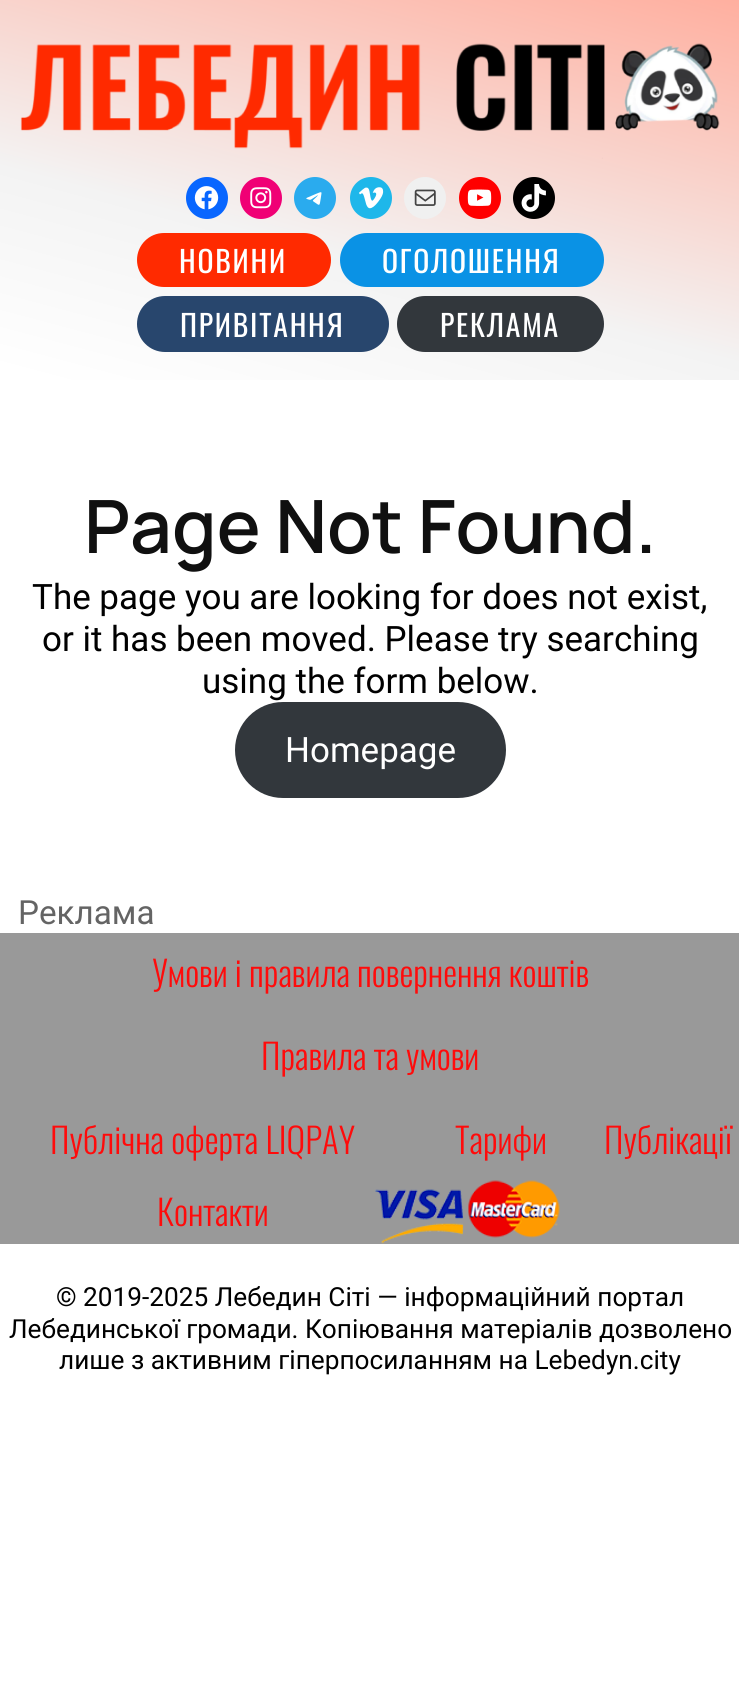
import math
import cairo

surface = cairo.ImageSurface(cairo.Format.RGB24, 739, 1701)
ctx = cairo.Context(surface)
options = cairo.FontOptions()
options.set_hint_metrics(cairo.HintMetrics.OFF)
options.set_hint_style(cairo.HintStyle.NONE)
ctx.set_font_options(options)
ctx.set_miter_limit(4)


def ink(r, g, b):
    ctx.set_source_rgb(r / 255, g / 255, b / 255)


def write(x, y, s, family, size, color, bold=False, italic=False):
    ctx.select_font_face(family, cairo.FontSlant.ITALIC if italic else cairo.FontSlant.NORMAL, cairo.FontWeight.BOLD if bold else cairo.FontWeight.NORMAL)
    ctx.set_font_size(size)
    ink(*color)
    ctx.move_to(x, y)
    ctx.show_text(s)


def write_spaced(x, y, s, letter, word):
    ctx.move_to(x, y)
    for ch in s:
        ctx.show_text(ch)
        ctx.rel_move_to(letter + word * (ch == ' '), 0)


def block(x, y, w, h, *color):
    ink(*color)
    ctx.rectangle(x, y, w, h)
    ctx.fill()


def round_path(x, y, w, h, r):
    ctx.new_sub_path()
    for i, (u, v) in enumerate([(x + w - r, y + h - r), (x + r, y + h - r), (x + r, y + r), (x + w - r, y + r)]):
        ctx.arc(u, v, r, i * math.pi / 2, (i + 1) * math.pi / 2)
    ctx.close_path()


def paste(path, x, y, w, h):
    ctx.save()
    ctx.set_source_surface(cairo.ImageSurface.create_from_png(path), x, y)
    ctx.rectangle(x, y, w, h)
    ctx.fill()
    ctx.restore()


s1 = dict(family="Manrope SemiBold", size=73.5, color=(16, 16, 16))
s2 = dict(family="Roboto", size=35, color=(0, 0, 0))
s3 = dict(family="Roboto", size=35, color=(255, 255, 255))
s4 = dict(family="Roboto", size=33.25, color=(100, 100, 100))
s5 = dict(family="Oswald Light", size=35, color=(255, 11, 11))
s6 = dict(family="Roboto", size=26.25, color=(0, 0, 0))

ink(255, 255, 255)
ctx.paint()
gradient = cairo.LinearGradient(298, 460, 442, -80)
gradient.add_color_stop_rgba(0.02, 1, 1, 1, 1)
gradient.add_color_stop_rgba(0.37, 0.953, 0.953, 0.953, 1)
gradient.add_color_stop_rgba(1, 1, 0.686, 0.624, 1)
ctx.set_source(gradient)
ctx.rectangle(0, 0, 739, 380)
ctx.fill()
paste("pic1.png", 20, 43, 700, 116)
ink(8, 102, 255)
ctx.arc(207, 198, 21, 0, 2 * math.pi)
ctx.fill()
paste("pic2.png", 194, 186, 25, 24)
ink(240, 0, 117)
ctx.arc(261, 198, 21, 0, 2 * math.pi)
ctx.fill()
paste("pic3.png", 250, 187, 22, 22)
ink(42, 171, 238)
ctx.arc(315, 198, 21, 0, 2 * math.pi)
ctx.fill()
paste("pic4.png", 306, 192, 16, 13)
ink(30, 183, 234)
ctx.arc(371, 198, 21, 0, 2 * math.pi)
ctx.fill()
paste("pic5.png", 359, 187, 25, 22)
ink(240, 240, 240)
ctx.arc(425, 198, 21, 0, 2 * math.pi)
ctx.fill()
paste("pic6.png", 414, 189, 22, 17)
ink(255, 0, 0)
ctx.arc(480, 198, 21, 0, 2 * math.pi)
ctx.fill()
paste("pic7.png", 467, 189, 25, 17)
ink(0, 0, 0)
ctx.arc(534, 198, 21, 0, 2 * math.pi)
ctx.fill()
paste("pic8.png", 521, 184, 25, 28)
ink(255, 42, 0)
round_path(137, 233, 194, 54, 27)
ctx.fill()
ctx.select_font_face("Oswald")
ctx.set_font_size(29.75)
ink(255, 255, 255)
write_spaced(179, 273, "НОВИНИ", 1.75, 0)
ink(10, 146, 229)
round_path(340, 233, 264, 54, 27)
ctx.fill()
ink(255, 255, 255)
write_spaced(382, 273, "ОГОЛОШЕННЯ", 1.75, 0)
ink(40, 70, 109)
round_path(137, 296, 252, 56, 28)
ctx.fill()
ink(255, 255, 255)
write_spaced(180, 337, "ПРИВІТАННЯ", 1.75, 0)
ink(50, 55, 60)
round_path(397, 296, 207, 56, 28)
ctx.fill()
ink(255, 255, 255)
write_spaced(440, 337, "РЕКЛАМА", 1.75, 0)
write(84, 553, "Page Not Found.", **s1)
write(32, 609, "The page you are looking for does not exist,", **s2)
write(42, 651, "or it has been moved. Please try searching", **s2)
write(202, 693, "using the form below.", **s2)
ink(50, 55, 60)
round_path(235, 702, 271, 96, 48)
ctx.fill()
write(285, 762, "Homepage", **s3)
write(18, 924, "Реклама", **s4)
block(0, 933, 739, 311, 153, 153, 153)
write(152, 987, "Умови і правила повернення коштів", **s5)
write(261, 1070, "Правила та умови", **s5)
write(50, 1154, "Публічна оферта LIQPAY", **s5)
write(455, 1154, "Тарифи", **s5)
write(604, 1154, "Публікації", **s5)
write(157, 1226, "Контакти", **s5)
paste("pic9.png", 375, 1180, 185, 64)
write(56, 1306, "© 2019-2025 Лебедин Сіті — інформаційний портал", **s6)
write(9, 1338, "Лебединської громади. Копіювання матеріалів дозволено", **s6)
write(59, 1369, "лише з активним гіперпосиланням на Lebedyn.city", **s6)
surface.write_to_png("screenshot.png")
